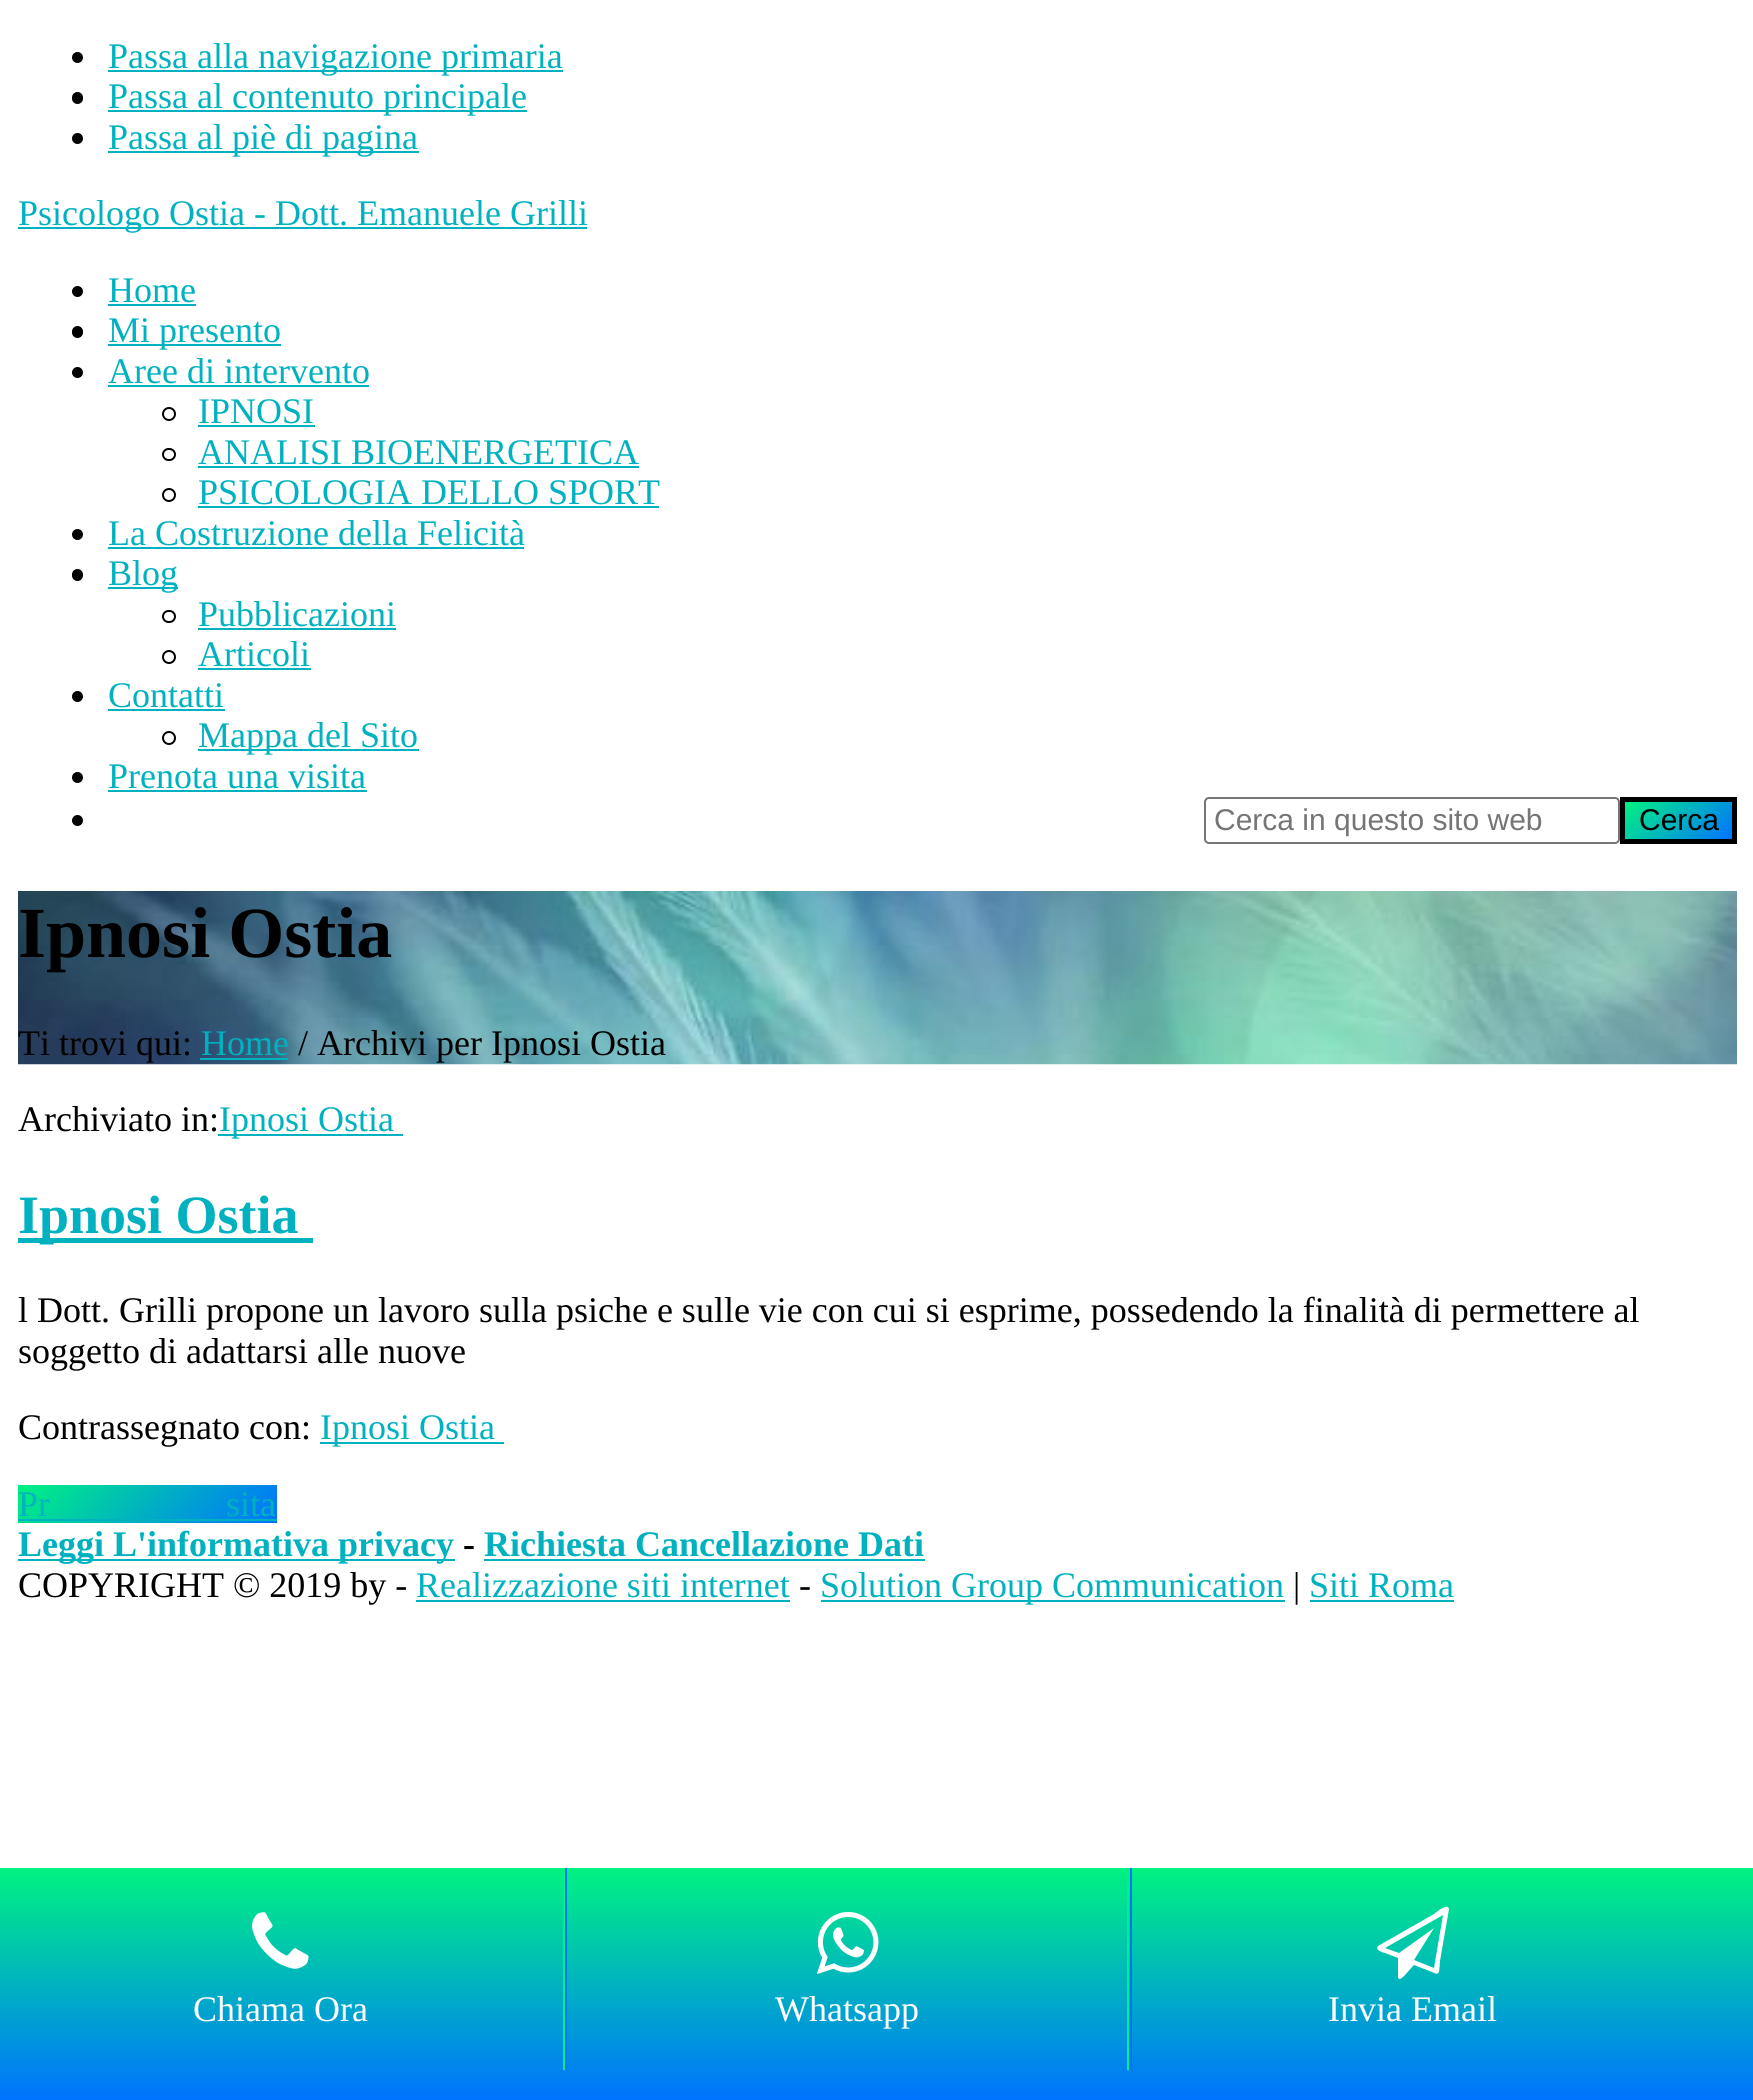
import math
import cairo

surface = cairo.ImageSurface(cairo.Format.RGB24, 1753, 2100)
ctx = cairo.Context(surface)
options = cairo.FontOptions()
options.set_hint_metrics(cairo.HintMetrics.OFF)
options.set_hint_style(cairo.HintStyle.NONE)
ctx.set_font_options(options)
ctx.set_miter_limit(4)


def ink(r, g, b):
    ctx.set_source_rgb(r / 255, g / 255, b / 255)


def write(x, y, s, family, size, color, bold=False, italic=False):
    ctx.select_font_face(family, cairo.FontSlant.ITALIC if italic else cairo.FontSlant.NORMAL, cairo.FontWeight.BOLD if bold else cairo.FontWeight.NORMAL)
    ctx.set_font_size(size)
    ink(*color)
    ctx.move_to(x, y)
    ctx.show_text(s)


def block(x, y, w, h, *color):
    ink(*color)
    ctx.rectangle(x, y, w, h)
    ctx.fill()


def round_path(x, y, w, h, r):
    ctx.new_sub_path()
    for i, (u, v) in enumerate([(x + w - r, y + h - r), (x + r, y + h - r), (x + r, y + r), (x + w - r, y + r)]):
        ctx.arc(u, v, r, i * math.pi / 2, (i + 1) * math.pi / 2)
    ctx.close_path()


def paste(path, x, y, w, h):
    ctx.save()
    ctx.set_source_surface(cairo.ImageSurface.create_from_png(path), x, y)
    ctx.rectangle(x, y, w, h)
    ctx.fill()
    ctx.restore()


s1 = dict(family="Liberation Serif", size=36, color=(0, 178, 192))
s2 = dict(family="Liberation Sans", size=30, color=(117, 117, 117))
s3 = dict(family="Liberation Sans", size=30, color=(0, 0, 0))
s4 = dict(family="Liberation Serif", size=72, color=(0, 0, 0), bold=True)
s5 = dict(family="Liberation Serif", size=36, color=(0, 0, 0))
s6 = dict(family="Liberation Serif", size=54, color=(0, 178, 192), bold=True)
s7 = dict(family="Liberation Serif", size=36, color=(0, 178, 192), bold=True)
s8 = dict(family="Liberation Serif", size=36, color=(0, 0, 0), bold=True)
s9 = dict(family="Liberation Serif", size=36, color=(255, 255, 255))

ink(255, 255, 255)
ctx.paint()
ink(0, 0, 0)
ctx.arc(77.5, 57.5, 5.5, 0, 2 * math.pi)
ctx.fill()
block(108, 70, 455, 2, 0, 178, 192)
write(108, 68, "Passa alla navigazione primaria", **s1)
ink(0, 0, 0)
round_path(72, 92, 11, 12, 5.5)
ctx.fill()
block(108, 110, 419, 2, 0, 178, 192)
write(108, 108, "Passa al contenuto principale", **s1)
ink(0, 0, 0)
ctx.new_path()
ctx.arc(77.5, 138.5, 5.5, 0, 2 * math.pi)
ctx.fill()
block(108, 151, 311, 2, 0, 178, 192)
write(108, 149, "Passa al piè di pagina", **s1)
block(18, 227, 569, 2, 0, 178, 192)
write(18, 225, "Psicologo Ostia - Dott. Emanuele Grilli", **s1)
ink(0, 0, 0)
ctx.new_path()
ctx.arc(77.5, 291.5, 5.5, 0, 2 * math.pi)
ctx.fill()
write(108, 302, "Home", **s1)
block(108, 304, 88, 2, 0, 178, 192)
ink(0, 0, 0)
round_path(72, 326, 11, 12, 5.5)
ctx.fill()
block(108, 344, 173, 2, 0, 178, 192)
write(108, 342, "Mi presento", **s1)
ink(0, 0, 0)
ctx.new_path()
ctx.arc(77.5, 372.5, 5.5, 0, 2 * math.pi)
ctx.fill()
write(108, 383, "Aree di intervento", **s1)
block(108, 385, 261, 2, 0, 178, 192)
ctx.new_path()
ctx.arc(169, 414, 6, 0, 2 * math.pi)
ink(0, 0, 0)
ctx.stroke()
write(198, 423, "IPNOSI", **s1)
block(198, 425, 117, 2, 0, 178, 192)
round_path(163, 449, 12, 11, 5.5)
ink(0, 0, 0)
ctx.stroke()
write(198, 464, "ANALISI BIOENERGETICA", **s1)
block(198, 466, 441, 2, 0, 178, 192)
ctx.new_path()
ctx.arc(169, 495, 6, 0, 2 * math.pi)
ink(0, 0, 0)
ctx.stroke()
write(198, 504, "PSICOLOGIA DELLO SPORT", **s1)
block(198, 506, 461, 2, 0, 178, 192)
ink(0, 0, 0)
ctx.new_path()
ctx.arc(77.5, 534.5, 5.5, 0, 2 * math.pi)
ctx.fill()
write(108, 545, "La Costruzione della Felicità", **s1)
block(108, 547, 416, 2, 0, 178, 192)
ink(0, 0, 0)
round_path(72, 569, 11, 12, 5.5)
ctx.fill()
block(108, 587, 70, 2, 0, 178, 192)
write(108, 585, "Blog", **s1)
round_path(163, 611, 12, 11, 5.5)
ink(0, 0, 0)
ctx.stroke()
write(198, 626, "Pubblicazioni", **s1)
block(198, 628, 198, 2, 0, 178, 192)
ctx.new_path()
ctx.arc(169, 657, 6, 0, 2 * math.pi)
ink(0, 0, 0)
ctx.stroke()
write(198, 666, "Articoli", **s1)
block(198, 668, 113, 2, 0, 178, 192)
ink(0, 0, 0)
ctx.new_path()
ctx.arc(77.5, 696.5, 5.5, 0, 2 * math.pi)
ctx.fill()
write(108, 707, "Contatti", **s1)
block(108, 709, 117, 2, 0, 178, 192)
ctx.new_path()
ctx.arc(169, 738, 6, 0, 2 * math.pi)
ink(0, 0, 0)
ctx.stroke()
block(198, 749, 221, 2, 0, 178, 192)
write(198, 747, "Mappa del Sito", **s1)
ink(0, 0, 0)
ctx.new_path()
ctx.arc(77.5, 777.5, 5.5, 0, 2 * math.pi)
ctx.fill()
write(108, 788, "Prenota una visita", **s1)
block(108, 790, 259, 2, 0, 178, 192)
ink(0, 0, 0)
ctx.new_path()
ctx.arc(77.5, 820.5, 5.5, 0, 2 * math.pi)
ctx.fill()
round_path(1205, 798, 414, 45, 4)
ink(118, 118, 118)
ctx.stroke()
write(1214, 830, "Cerca in questo sito web", **s2)
gradient = cairo.LinearGradient(1642, 784, 1715, 857)
gradient.add_color_stop_rgba(0, 0, 0.949, 0.506, 1)
gradient.add_color_stop_rgba(1, 0, 0.447, 1, 1)
ctx.set_source(gradient)
ctx.rectangle(1625, 802, 107, 37)
ctx.fill()
ctx.rectangle(1622.5, 799.5, 112, 42)
ink(0, 0, 0)
ctx.set_line_width(5)
ctx.stroke()
write(1639, 830, "Cerca", **s3)
paste("pic1.png", 18, 891, 1719, 174)
write(18, 957, "Ipnosi Ostia", **s4)
write(18, 1055, "Ti trovi qui:", **s5)
write(201, 1055, "Home", **s1)
block(200, 1058, 88, 2, 0, 178, 192)
write(298, 1055, "/ Archivi per Ipnosi Ostia", **s5)
write(18, 1131, "Archiviato in:", **s5)
block(218, 1134, 185, 2, 0, 178, 192)
write(219, 1131, "Ipnosi Ostia", **s1)
block(18, 1238, 295, 5, 0, 178, 192)
write(18, 1233, "Ipnosi Ostia", **s6)
write(18, 1322, "l Dott. Grilli propone un lavoro sulla psiche e sulle vie con cui si esprime, possedendo la finalità di permettere al", **s5)
write(18, 1363, "soggetto di adattarsi alle nuove", **s5)
write(18, 1439, "Contrassegnato con:", **s5)
block(320, 1442, 184, 2, 0, 178, 192)
write(320, 1439, "Ipnosi Ostia", **s1)
gradient = cairo.LinearGradient(73, 1430, 222, 1578)
gradient.add_color_stop_rgba(0, 0, 0.949, 0.506, 1)
gradient.add_color_stop_rgba(1, 0, 0.447, 1, 1)
ctx.set_source(gradient)
ctx.rectangle(18, 1485, 259, 38)
ctx.fill()
write(18, 1516, "Pr", **s1)
write(226, 1516, "sita", **s1)
block(18, 1519, 259, 2, 0, 178, 192)
block(18, 1559, 437, 2, 0, 178, 192)
write(18, 1556, "Leggi L'informativa privacy", **s7)
write(463, 1556, "-", **s8)
write(484, 1556, "Richiesta Cancellazione Dati", **s7)
block(484, 1559, 441, 2, 0, 178, 192)
write(18, 1597, "COPYRIGHT © 2019 by -", **s5)
write(416, 1597, "Realizzazione siti internet", **s1)
block(416, 1600, 374, 2, 0, 178, 192)
write(799, 1597, "-", **s5)
block(821, 1600, 464, 2, 0, 178, 192)
write(820, 1597, "Solution Group Communication", **s1)
write(1293, 1597, "|", **s5)
write(1309, 1597, "Siti Roma", **s1)
block(1310, 1600, 144, 2, 0, 178, 192)
gradient = cairo.LinearGradient(878, 1868, 878, 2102)
gradient.add_color_stop_rgba(0, 0, 0.949, 0.506, 1)
gradient.add_color_stop_rgba(1, 0, 0.447, 1, 1)
ctx.set_source(gradient)
ctx.rectangle(0, 1868, 1753, 232)
ctx.fill()
block(563, 1868, 2, 202, 0, 242, 129)
paste("pic2.png", 252, 1912, 57, 57)
write(193, 2021, "Chiama Ora", **s9)
block(1127, 1868, 2, 202, 0, 242, 129)
block(565, 1868, 2, 202, 0, 114, 255)
paste("pic3.png", 816, 1911, 63, 63)
write(775, 2021, "Whatsapp", **s9)
block(1130, 1868, 2, 202, 0, 114, 255)
ink(255, 255, 255)
ctx.new_path()
ctx.move_to(1448, 1907)
ctx.curve_to(1444, 1905, 1434, 1914, 1434, 1914)
ctx.line_to(1378, 1946)
ctx.curve_to(1374, 1950, 1384, 1953, 1385, 1953)
ctx.line_to(1398, 1958)
ctx.line_to(1398, 1977)
ctx.curve_to(1399, 1984, 1408, 1971, 1414, 1965)
ctx.line_to(1432, 1972)
ctx.curve_to(1440, 1976, 1439, 1973, 1440, 1961)
ctx.line_to(1449, 1909)
ctx.close_path()
ctx.move_to(1434, 1968)
ctx.line_to(1414, 1960)
ctx.line_to(1434, 1928)
ctx.line_to(1399, 1953)
ctx.line_to(1385, 1948)
ctx.line_to(1443, 1915)
ctx.close_path()
ctx.fill()
write(1328, 2021, "Invia Email", **s9)
surface.write_to_png("screenshot.png")
